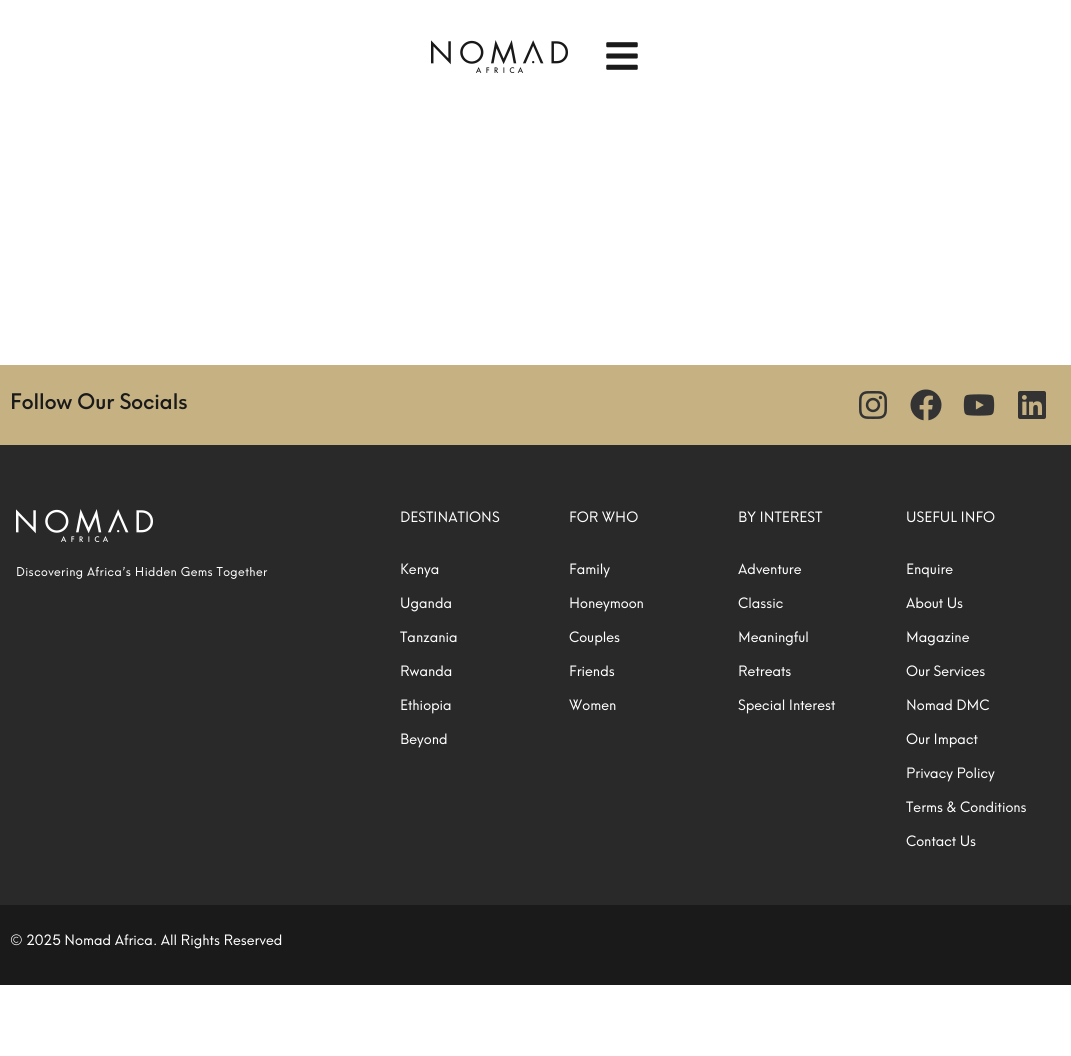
import math
import cairo

surface = cairo.ImageSurface(cairo.Format.RGB24, 1071, 1056)
ctx = cairo.Context(surface)
options = cairo.FontOptions()
options.set_hint_metrics(cairo.HintMetrics.OFF)
options.set_hint_style(cairo.HintStyle.NONE)
ctx.set_font_options(options)
ctx.set_miter_limit(4)


def ink(r, g, b):
    ctx.set_source_rgb(r / 255, g / 255, b / 255)


def write(x, y, s, family, size, color, bold=False, italic=False):
    ctx.select_font_face(family, cairo.FontSlant.ITALIC if italic else cairo.FontSlant.NORMAL, cairo.FontWeight.BOLD if bold else cairo.FontWeight.NORMAL)
    ctx.set_font_size(size)
    ink(*color)
    ctx.move_to(x, y)
    ctx.show_text(s)


def write_spaced(x, y, s, letter, word):
    ctx.move_to(x, y)
    for ch in s:
        ctx.show_text(ch)
        ctx.rel_move_to(letter + word * (ch == ' '), 0)


def block(x, y, w, h, *color):
    ink(*color)
    ctx.rectangle(x, y, w, h)
    ctx.fill()


def paste(path, x, y, w, h):
    ctx.save()
    ctx.set_source_surface(cairo.ImageSurface.create_from_png(path), x, y)
    ctx.rectangle(x, y, w, h)
    ctx.fill()
    ctx.restore()


s1 = dict(family="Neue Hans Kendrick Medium", size=21, color=(26, 26, 26))
s2 = dict(family="Neue Hans Kendrick", size=14, color=(255, 255, 255))

ink(255, 255, 255)
ctx.paint()
paste("pic1.png", 431, 40, 137, 33)
paste("pic2.png", 606, 42, 32, 28)
block(0, 365, 1071, 80, 198, 177, 131)
write(10, 409, "Follow Our Socials", **s1)
paste("pic3.png", 859, 391, 28, 28)
paste("pic4.png", 910, 389, 32, 32)
paste("pic5.png", 963, 394, 32, 22)
paste("pic6.png", 1018, 391, 28, 28)
block(0, 445, 1071, 460, 41, 41, 41)
paste("pic7.png", 16, 509, 137, 33)
ctx.select_font_face("Neue Hans Kendrick")
ctx.set_font_size(12)
ink(255, 255, 255)
write_spaced(16, 576, "Discovering Africa’s Hidden Gems Together", 0.4, 0)
write(400, 522, "DESTINATIONS", **s2)
write(400, 574, "Kenya", **s2)
write(400, 608, "Uganda", **s2)
write(400, 642, "Tanzania", **s2)
write(400, 676, "Rwanda", **s2)
write(400, 710, "Ethiopia", **s2)
write(400, 744, "Beyond", **s2)
write(569, 522, "FOR WHO", **s2)
write(569, 574, "Family", **s2)
write(569, 608, "Honeymoon", **s2)
write(569, 642, "Couples", **s2)
write(569, 676, "Friends", **s2)
write(569, 710, "Women", **s2)
write(738, 522, "BY INTEREST", **s2)
write(738, 574, "Adventure", **s2)
write(738, 608, "Classic", **s2)
write(738, 642, "Meaningful", **s2)
write(738, 676, "Retreats", **s2)
write(738, 710, "Special Interest", **s2)
write(906, 522, "USEFUL INFO", **s2)
write(906, 574, "Enquire", **s2)
write(906, 608, "About Us", **s2)
write(906, 642, "Magazine", **s2)
write(906, 676, "Our Services", **s2)
write(906, 710, "Nomad DMC", **s2)
write(906, 744, "Our Impact", **s2)
write(906, 778, "Privacy Policy", **s2)
write(906, 812, "Terms & Conditions", **s2)
write(906, 846, "Contact Us", **s2)
block(0, 905, 1071, 80, 26, 26, 26)
write(10, 945, "© 2025 Nomad Africa. All Rights Reserved", **s2)
surface.write_to_png("screenshot.png")
